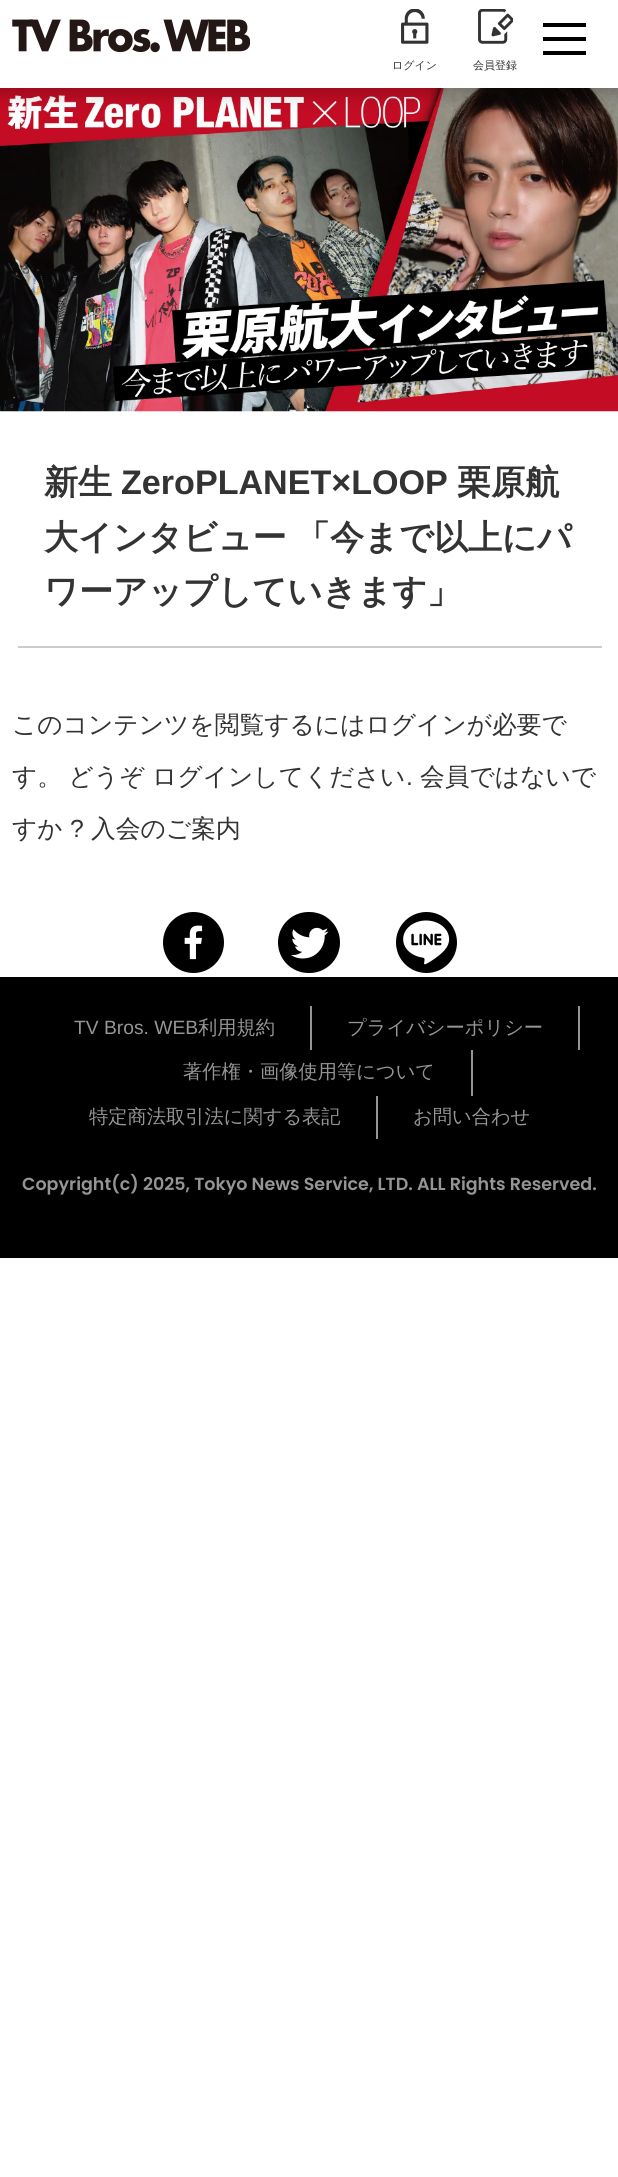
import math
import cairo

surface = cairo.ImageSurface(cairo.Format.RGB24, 618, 2177)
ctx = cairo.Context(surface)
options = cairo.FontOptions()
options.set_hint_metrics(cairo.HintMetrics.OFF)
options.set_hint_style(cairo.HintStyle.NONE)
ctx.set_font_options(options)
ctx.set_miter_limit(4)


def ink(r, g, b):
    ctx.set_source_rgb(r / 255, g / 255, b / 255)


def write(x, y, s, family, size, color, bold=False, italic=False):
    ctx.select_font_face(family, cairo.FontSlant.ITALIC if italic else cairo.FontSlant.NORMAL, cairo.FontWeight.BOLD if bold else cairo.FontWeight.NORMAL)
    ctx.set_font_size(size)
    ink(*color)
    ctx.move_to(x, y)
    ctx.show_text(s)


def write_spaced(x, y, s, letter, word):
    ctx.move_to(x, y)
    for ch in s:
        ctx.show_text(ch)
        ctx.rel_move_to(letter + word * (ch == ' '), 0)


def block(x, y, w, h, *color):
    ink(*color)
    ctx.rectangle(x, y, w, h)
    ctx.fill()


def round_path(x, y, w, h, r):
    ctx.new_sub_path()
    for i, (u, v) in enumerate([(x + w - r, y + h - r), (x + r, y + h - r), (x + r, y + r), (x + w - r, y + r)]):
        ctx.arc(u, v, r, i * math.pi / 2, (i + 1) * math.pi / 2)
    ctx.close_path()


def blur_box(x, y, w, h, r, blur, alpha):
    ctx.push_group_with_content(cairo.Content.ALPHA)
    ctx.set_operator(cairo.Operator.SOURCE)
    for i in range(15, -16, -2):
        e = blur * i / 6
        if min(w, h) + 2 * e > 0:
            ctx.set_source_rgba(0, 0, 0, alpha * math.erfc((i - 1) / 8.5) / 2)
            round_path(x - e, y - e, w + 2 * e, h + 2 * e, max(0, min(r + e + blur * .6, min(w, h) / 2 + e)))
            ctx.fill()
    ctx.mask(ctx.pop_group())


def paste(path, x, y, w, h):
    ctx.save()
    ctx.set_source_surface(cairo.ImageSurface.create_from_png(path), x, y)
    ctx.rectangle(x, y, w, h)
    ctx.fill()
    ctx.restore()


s1 = dict(family="WenQuanYi Zen Hei Medium", size=11, color=(51, 51, 51))
s2 = dict(family="WenQuanYi Zen Hei", size=34.1, color=(51, 51, 51), bold=True)
s3 = dict(family="Liberation Sans", size=34.1, color=(51, 51, 51), bold=True)
s4 = dict(family="WenQuanYi Zen Hei Medium", size=24.75, color=(51, 51, 51))
s5 = dict(family="Liberation Sans", size=24.75, color=(51, 51, 51))
s6 = dict(family="Liberation Sans", size=19.25, color=(149, 149, 149))
s7 = dict(family="WenQuanYi Zen Hei Medium", size=19.25, color=(149, 149, 149))
s8 = dict(family="Poppins SemiBold", size=17.5, color=(149, 149, 149))

ink(255, 255, 255)
ctx.paint()
paste("pic4.png", 0, 88, 618, 324)
ink(0, 0, 0)
blur_box(-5, -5, 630, 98, 0, 9, 0.25)
block(0, 0, 618, 88, 255, 255, 255)
paste("pic1.png", 12, 19, 238, 34)
block(543, 23, 43, 4, 0, 0, 0)
block(543, 37, 43, 4, 0, 0, 0)
block(543, 51, 43, 4, 0, 0, 0)
paste("pic2.png", 401, 9, 28, 35)
write(392, 69, "ログイン", **s1)
paste("pic3.png", 478, 9, 35, 35)
write(473, 69, "会員登録", **s1)
block(18, 646, 584, 2, 204, 204, 204)
write(44, 494, "新生", **s2)
write(121, 494, "ZeroPLANET×LOOP", **s3)
write(457, 494, "栗原航", **s2)
write_spaced(44, 549, "大インタビュー 「今まで以上にパ", 0, -1)
write(44, 603, "ワーアップしていきます」", **s2)
write(12, 733, "このコンテンツを閲覧するにはログインが必要で", **s4)
write_spaced(12, 785, "す。 どうぞ", 0, -1)
write(152, 785, "ログインしてください", **s4)
write(406, 785, ".", **s5)
write(420, 785, "会員ではないで", **s4)
write(12, 837, "すか", **s4)
write(70, 837, "?", **s5)
write(91, 837, "入会のご案内", **s4)
ink(0, 0, 0)
ctx.new_path()
ctx.arc(193.5, 942.5, 30.5, 0, 2 * math.pi)
ctx.fill()
paste("pic5.png", 184, 925, 19, 35)
round_path(278, 912, 62, 61, 30.5)
ctx.fill()
paste("pic6.png", 291, 927, 38, 32)
ctx.arc(426.5, 942.5, 30.5, 0, 2 * math.pi)
ctx.fill()
paste("pic7.png", 403, 920, 47, 45)
block(0, 977, 618, 281, 0, 0, 0)
block(310, 1006, 2, 44, 149, 149, 149)
write(74, 1034, "TV Bros. WEB", **s6)
write(198, 1034, "利用規約", **s7)
block(578, 1006, 2, 44, 149, 149, 149)
write(347, 1034, "プライバシーポリシー", **s7)
block(471, 1050, 2, 46, 149, 149, 149)
write(183, 1078, "著作権・画像使用等について", **s7)
block(376, 1096, 2, 43, 149, 149, 149)
write(89, 1123, "特定商法取引法に関する表記", **s7)
write(413, 1123, "お問い合わせ", **s7)
write(22, 1190, "Copyright(c) 2025, Tokyo News Service, LTD. ALL Rights Reserved.", **s8)
surface.write_to_png("screenshot.png")
